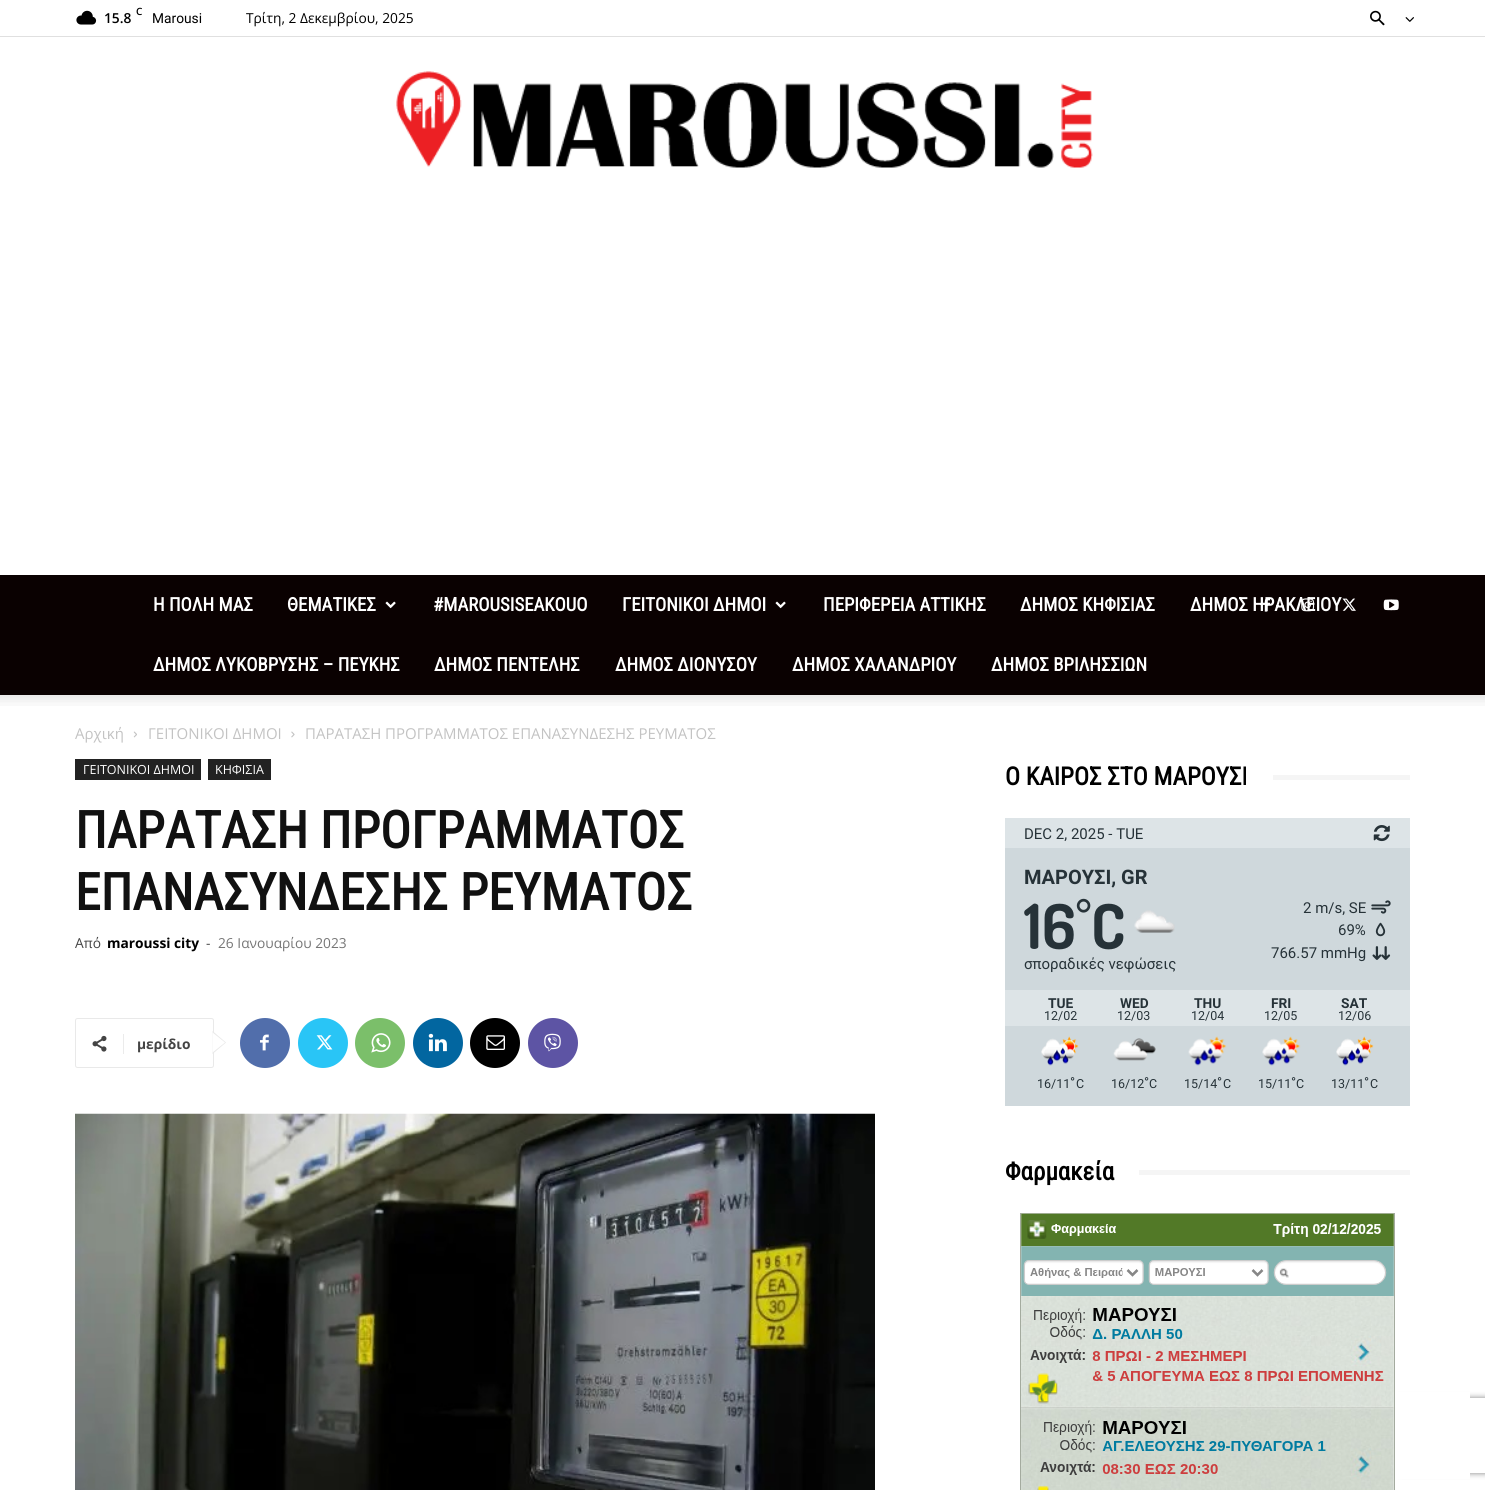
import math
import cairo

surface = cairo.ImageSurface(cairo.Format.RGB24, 1485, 1490)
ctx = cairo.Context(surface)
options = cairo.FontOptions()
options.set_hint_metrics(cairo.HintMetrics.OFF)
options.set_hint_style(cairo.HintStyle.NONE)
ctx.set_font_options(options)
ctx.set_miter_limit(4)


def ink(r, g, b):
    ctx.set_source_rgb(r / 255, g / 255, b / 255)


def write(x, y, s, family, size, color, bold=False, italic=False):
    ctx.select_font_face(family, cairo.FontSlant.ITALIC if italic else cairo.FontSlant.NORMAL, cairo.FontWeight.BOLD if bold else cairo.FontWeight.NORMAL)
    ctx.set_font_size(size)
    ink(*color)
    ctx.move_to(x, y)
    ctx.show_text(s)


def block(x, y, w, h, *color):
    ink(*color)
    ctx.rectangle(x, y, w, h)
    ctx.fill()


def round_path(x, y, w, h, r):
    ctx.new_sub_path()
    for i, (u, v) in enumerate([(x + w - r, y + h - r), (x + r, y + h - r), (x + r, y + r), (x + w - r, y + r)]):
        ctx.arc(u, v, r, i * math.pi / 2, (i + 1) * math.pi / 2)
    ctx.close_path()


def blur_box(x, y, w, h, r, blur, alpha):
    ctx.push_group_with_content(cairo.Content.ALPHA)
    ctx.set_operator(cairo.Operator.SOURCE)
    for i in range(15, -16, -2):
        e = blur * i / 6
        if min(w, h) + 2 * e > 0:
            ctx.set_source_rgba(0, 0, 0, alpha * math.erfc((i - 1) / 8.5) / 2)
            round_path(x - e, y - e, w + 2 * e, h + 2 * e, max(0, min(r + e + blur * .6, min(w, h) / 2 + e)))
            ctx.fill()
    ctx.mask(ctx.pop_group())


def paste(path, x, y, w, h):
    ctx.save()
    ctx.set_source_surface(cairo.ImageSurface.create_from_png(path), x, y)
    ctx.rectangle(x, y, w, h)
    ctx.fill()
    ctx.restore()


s1 = dict(family="Open Sans SemiBold", size=10, color=(0, 0, 0))
s2 = dict(family="Open Sans SemiBold", size=13.75, color=(0, 0, 0))
s3 = dict(family="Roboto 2", size=13.75, color=(0, 0, 0))
s4 = dict(family="Open Sans", size=13.75, color=(0, 0, 0))
s5 = dict(family="Roboto Condensed", size=18.75, color=(255, 255, 255), bold=True)
s6 = dict(family="Open Sans", size=15, color=(195, 195, 195))
s7 = dict(family="Open Sans", size=12.5, color=(255, 255, 255))
s8 = dict(family="Roboto Condensed", size=51.25, color=(17, 17, 17), bold=True)
s9 = dict(family="Open Sans", size=13.75, color=(68, 68, 68))
s10 = dict(family="Open Sans", size=13.75, color=(0, 0, 0), bold=True)
s11 = dict(family="Open Sans", size=13.75, color=(118, 118, 118))
s12 = dict(family="Open Sans", size=13.75, color=(68, 68, 68), bold=True)
s13 = dict(family="Roboto Condensed", size=25, color=(0, 0, 0), bold=True)
s14 = dict(family="Roboto", size=15, color=(38, 50, 56))
s15 = dict(family="Roboto", size=20, color=(38, 50, 56), bold=True)
s16 = dict(family="Dosis", size=62, color=(38, 50, 56), bold=True)
s17 = dict(family="Dosis", size=38, color=(38, 50, 56), bold=True)
s18 = dict(family="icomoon", size=22, color=(38, 50, 56))
s19 = dict(family="icomoon", size=21, color=(38, 50, 56))
s20 = dict(family="Roboto", size=13.75, color=(38, 50, 56), bold=True)
s21 = dict(family="Roboto", size=12.5, color=(38, 50, 56))
s22 = dict(family="Roboto", size=13.75, color=(38, 50, 56))

ink(255, 255, 255)
ctx.paint()
block(0, 36, 1485, 1, 224, 224, 224)
paste("pic1.png", 76, 10, 21, 15)
write(136, 15, "C", **s1)
write(104, 23, "15.8", **s2)
write(152, 23, "Marousi", **s3)
write(246, 23, "Τρίτη, 2 Δεκεμβρίου, 2025", **s4)
paste("pic2.png", 1370, 10, 15, 16)
paste("pic3.png", 1405, 17, 9, 5)
paste("pic4.png", 396, 71, 697, 97)
block(0, 575, 1485, 120, 10, 1, 1)
write(153, 611, "Η ΠΟΛΗ ΜΑΣ", **s5)
write(287, 611, "ΘΕΜΑΤΙΚΕΣ", **s5)
paste("pic5.png", 385, 601, 11, 8)
write(433, 611, "#MAROUSISEAKOUO", **s5)
write(622, 611, "ΓΕΙΤΟΝΙΚΟΙ ΔΗΜΟΙ", **s5)
paste("pic5.png", 775, 601, 11, 8)
write(823, 611, "ΠΕΡΙΦΕΡΕΙΑ ΑΤΤΙΚΗΣ", **s5)
write(1020, 611, "ΔΗΜΟΣ ΚΗΦΙΣΙΑΣ", **s5)
write(1190, 611, "ΔΗΜΟΣ ΗΡΑΚΛΕΙΟΥ", **s5)
write(153, 671, "ΔΗΜΟΣ ΛΥΚΟΒΡΥΣΗΣ – ΠΕΥΚΗΣ", **s5)
write(434, 671, "ΔΗΜΟΣ ΠΕΝΤΕΛΗΣ", **s5)
write(615, 671, "ΔΗΜΟΣ ΔΙΟΝΥΣΟΥ", **s5)
write(792, 671, "ΔΗΜΟΣ ΧΑΛΑΝΔΡΙΟΥ", **s5)
write(991, 671, "ΔΗΜΟΣ ΒΡΙΛΗΣΣΙΩΝ", **s5)
paste("pic6.png", 1262, 598, 8, 14)
paste("pic7.png", 1301, 598, 14, 14)
paste("pic8.png", 1342, 598, 14, 13)
paste("pic9.png", 1383, 599, 16, 12)
paste("pic10.png", 0, 695, 1485, 11)
ctx.save()
ctx.set_fill_rule(cairo.FillRule.EVEN_ODD)
ctx.new_path()
ctx.move_to(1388, 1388)
ctx.line_to(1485, 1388)
ctx.line_to(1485, 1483)
ctx.line_to(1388, 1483)
ctx.close_path()
ctx.move_to(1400.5, 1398)
ctx.line_to(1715.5, 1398)
ctx.curve_to(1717, 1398, 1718, 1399, 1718, 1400.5)
ctx.line_to(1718, 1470.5)
ctx.curve_to(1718, 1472, 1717, 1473, 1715.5, 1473)
ctx.line_to(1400.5, 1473)
ctx.curve_to(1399, 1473, 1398, 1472, 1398, 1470.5)
ctx.line_to(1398, 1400.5)
ctx.curve_to(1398, 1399, 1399, 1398, 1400.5, 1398)
ctx.close_path()
ctx.clip()
ink(128, 128, 128)
blur_box(1398, 1398, 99, 75, 2.5, 3, 1)
ctx.restore()
block(1392, 1392, 78, 87, 255, 255, 255)
write(75, 739, "Αρχική", **s6)
paste("pic11.png", 133, 731, 4, 7)
write(148, 739, "ΓΕΙΤΟΝΙΚΟΙ ΔΗΜΟΙ", **s6)
paste("pic12.png", 291, 731, 4, 7)
write(305, 739, "ΠΑΡΑΤΑΣΗ ΠΡΟΓΡΑΜΜΑΤΟΣ ΕΠΑΝΑΣΥΝΔΕΣΗΣ ΡΕΥΜΑΤΟΣ", **s6)
block(75, 759, 126, 21, 34, 34, 34)
write(83, 774, "ΓΕΙΤΟΝΙΚΟΙ ΔΗΜΟΙ", **s7)
block(208, 759, 63, 21, 34, 34, 34)
write(215, 774, "ΚΗΦΙΣΙΑ", **s7)
write(75, 848, "ΠΑΡΑΤΑΣΗ ΠΡΟΓΡΑΜΜΑΤΟΣ", **s8)
write(75, 910, "ΕΠΑΝΑΣΥΝΔΕΣΗΣ ΡΕΥΜΑΤΟΣ", **s8)
write(75, 948, "Από", **s9)
write(107, 948, "maroussi city", **s10)
write(206, 948, "-", **s9)
write(218, 948, "26 Ιανουαρίου 2023", **s11)
round_path(75.5, 1018.5, 138, 49, 2)
ink(233, 233, 233)
ctx.set_line_width(1)
ctx.stroke()
ctx.new_path()
ctx.move_to(212.5, 1054)
ctx.line_to(212.5, 1031)
ctx.line_to(226, 1042.5)
ctx.close_path()
ctx.fill()
paste("pic13.png", 92, 1035, 15, 17)
block(123, 1034, 1, 20, 235, 235, 235)
write(137, 1049, "μερίδιο", **s12)
ink(255, 255, 255)
ctx.new_path()
ctx.move_to(212.5, 1052.5)
ctx.line_to(212.5, 1032.5)
ctx.line_to(225, 1042.5)
ctx.close_path()
ctx.fill()
ink(81, 110, 171)
ctx.arc(265, 1043, 25, 0, 2 * math.pi)
ctx.fill()
paste("pic14.png", 260, 1034, 9, 17)
ink(41, 197, 246)
ctx.arc(323, 1043, 25, 0, 2 * math.pi)
ctx.fill()
paste("pic15.png", 316, 1035, 17, 15)
ink(123, 191, 106)
ctx.arc(380, 1043, 25, 0, 2 * math.pi)
ctx.fill()
paste("pic16.png", 371, 1033, 20, 20)
ink(2, 102, 160)
ctx.arc(438, 1043, 25, 0, 2 * math.pi)
ctx.fill()
paste("pic17.png", 428, 1033, 19, 19)
ink(0, 0, 0)
ctx.arc(495, 1043, 25, 0, 2 * math.pi)
ctx.fill()
paste("pic18.png", 486, 1035, 19, 15)
ink(93, 84, 164)
ctx.arc(553, 1043, 25, 0, 2 * math.pi)
ctx.fill()
paste("pic19.png", 544, 1033, 17, 19)
paste("pic20.png", 75, 1113, 800, 377)
write(1005, 785, "Ο ΚΑΙΡΟΣ ΣΤΟ ΜΑΡΟΥΣΙ", **s13)
block(1273, 775, 137, 5, 245, 245, 245)
block(1005, 848, 405, 258, 207, 216, 220)
block(1005, 818, 405, 30, 221, 228, 231)
write(1024, 839, "DEC 2, 2025 - TUE", **s14)
paste("pic21.png", 1373, 825, 17, 17)
write(1024, 884, "ΜΑΡΟΥΣΙ, GR", **s15)
write(1024, 949, "16", **s16)
write(1076, 928, "°", **s17)
write(1091, 949, "C", **s16)
paste("pic22.png", 1134, 910, 41, 23)
write(1024, 969, "σποραδικές νεφώσεις", **s14)
write(1303, 913, "2 m/s, SE", **s14)
write(1370, 918, "|", **s18)
write(1338, 935, "69%", **s14)
write(1370, 940, "-", **s19)
write(1271, 958, "766.57 mmHg", **s14)
paste("pic23.png", 1372, 946, 10, 14)
paste("pic24.png", 1381, 946, 10, 14)
block(1005, 990, 405, 36, 221, 228, 231)
write(1048, 1008, "TUE", **s20)
write(1044, 1020, "12/02", **s21)
write(1120, 1008, "WED", **s20)
write(1117, 1020, "12/03", **s21)
write(1194, 1008, "THU", **s20)
write(1191, 1020, "12/04", **s21)
write(1271, 1008, "FRI", **s20)
write(1264, 1020, "12/05", **s21)
write(1341, 1008, "SAT", **s20)
write(1338, 1020, "12/06", **s21)
paste("pic25.png", 1041, 1036, 38, 30)
write(1037, 1088, "16/11", **s21)
write(1070, 1087, "°", **s22)
write(1076, 1088, "C", **s21)
paste("pic26.png", 1113, 1038, 43, 23)
write(1111, 1088, "16/12", **s21)
write(1144, 1087, "°", **s22)
write(1149, 1088, "C", **s21)
paste("pic27.png", 1188, 1036, 39, 30)
write(1184, 1088, "15/14", **s21)
write(1217, 1087, "°", **s22)
write(1223, 1088, "C", **s21)
paste("pic28.png", 1262, 1036, 39, 30)
write(1258, 1088, "15/11", **s21)
write(1291, 1087, "°", **s22)
write(1296, 1088, "C", **s21)
paste("pic25.png", 1336, 1036, 38, 30)
write(1331, 1088, "13/11", **s21)
write(1364, 1087, "°", **s22)
write(1370, 1088, "C", **s21)
write(1005, 1180, "Φαρμακεία", **s13)
block(1139, 1170, 271, 5, 245, 245, 245)
paste("pic29.png", 1020, 1213, 375, 277)
surface.write_to_png("screenshot.png")
